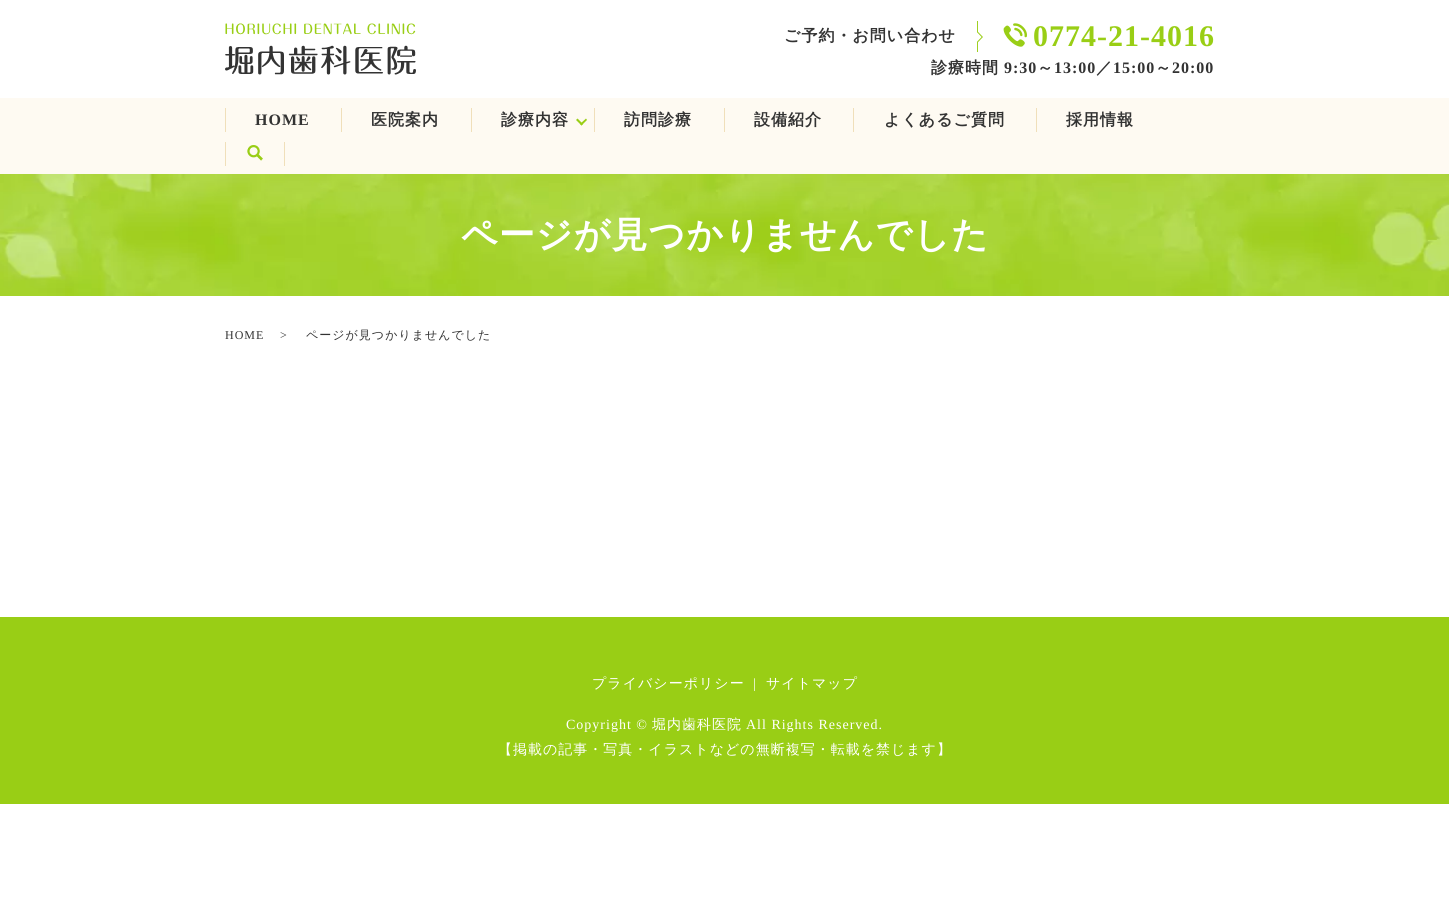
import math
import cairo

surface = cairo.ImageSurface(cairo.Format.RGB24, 1449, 898)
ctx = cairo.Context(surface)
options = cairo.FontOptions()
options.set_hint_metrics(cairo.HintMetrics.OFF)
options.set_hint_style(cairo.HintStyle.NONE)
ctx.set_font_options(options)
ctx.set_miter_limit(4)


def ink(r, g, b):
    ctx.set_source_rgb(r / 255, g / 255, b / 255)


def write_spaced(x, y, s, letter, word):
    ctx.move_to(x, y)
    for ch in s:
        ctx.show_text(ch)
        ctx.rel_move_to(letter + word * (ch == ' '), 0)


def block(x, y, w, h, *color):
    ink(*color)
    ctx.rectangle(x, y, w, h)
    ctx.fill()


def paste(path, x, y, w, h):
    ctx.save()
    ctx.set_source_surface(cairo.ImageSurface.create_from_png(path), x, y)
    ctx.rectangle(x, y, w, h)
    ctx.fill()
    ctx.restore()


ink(255, 255, 255)
ctx.paint()
paste("pic1.png", 225, 23, 191, 52)
ctx.select_font_face("WenQuanYi Zen Hei", cairo.FontSlant.NORMAL, cairo.FontWeight.BOLD)
ctx.set_font_size(16)
ink(51, 51, 51)
write_spaced(784, 41, "ご予約・お問い合わせ", 1, 0)
paste("pic2.png", 977, 21, 6, 31)
paste("pic3.png", 1003, 23, 24, 24)
ctx.select_font_face("Liberation Serif", cairo.FontSlant.NORMAL, cairo.FontWeight.BOLD)
ctx.set_font_size(30)
ink(153, 206, 21)
write_spaced(1033, 46, "0774-21-4016", 1, 0)
ctx.select_font_face("WenQuanYi Zen Hei", cairo.FontSlant.NORMAL, cairo.FontWeight.BOLD)
ctx.set_font_size(16)
ink(51, 51, 51)
write_spaced(931, 73, "診療時間", 1, 0)
ctx.select_font_face("Liberation Serif", cairo.FontSlant.NORMAL, cairo.FontWeight.BOLD)
write_spaced(1004, 73, "9:30", 1, 0)
ctx.select_font_face("WenQuanYi Zen Hei", cairo.FontSlant.NORMAL, cairo.FontWeight.BOLD)
write_spaced(1037, 73, "～", 1, 0)
ctx.select_font_face("Liberation Serif", cairo.FontSlant.NORMAL, cairo.FontWeight.BOLD)
write_spaced(1054, 73, "13:00", 1, 0)
ctx.select_font_face("WenQuanYi Zen Hei", cairo.FontSlant.NORMAL, cairo.FontWeight.BOLD)
write_spaced(1096, 73, "／", 1, 0)
ctx.select_font_face("Liberation Serif", cairo.FontSlant.NORMAL, cairo.FontWeight.BOLD)
write_spaced(1113, 73, "15:00", 1, 0)
ctx.select_font_face("WenQuanYi Zen Hei", cairo.FontSlant.NORMAL, cairo.FontWeight.BOLD)
write_spaced(1155, 73, "～", 1, 0)
ctx.select_font_face("Liberation Serif", cairo.FontSlant.NORMAL, cairo.FontWeight.BOLD)
write_spaced(1172, 73, "20:00", 1, 0)
block(0, 98, 1449, 76, 254, 250, 242)
block(225, 108, 1, 24, 240, 223, 186)
ink(51, 51, 51)
write_spaced(255, 125, "HOME", 1, 0)
block(341, 108, 1, 24, 240, 223, 186)
ctx.select_font_face("WenQuanYi Zen Hei", cairo.FontSlant.NORMAL, cairo.FontWeight.BOLD)
ink(51, 51, 51)
write_spaced(371, 125, "医院案内", 1, 0)
block(471, 108, 1, 24, 240, 223, 186)
ink(51, 51, 51)
write_spaced(501, 125, "診療内容", 1, 0)
ink(153, 206, 21)
ctx.new_path()
ctx.move_to(587, 120)
ctx.line_to(581.5, 125.5)
ctx.line_to(580, 124)
ctx.line_to(586, 118.5)
ctx.close_path()
ctx.fill()
ctx.new_path()
ctx.move_to(583, 124)
ctx.line_to(581.5, 125.5)
ctx.line_to(576, 120)
ctx.line_to(577.5, 118.5)
ctx.close_path()
ctx.fill()
block(594, 108, 1, 24, 240, 223, 186)
ink(51, 51, 51)
write_spaced(624, 125, "訪問診療", 1, 0)
block(724, 108, 1, 24, 240, 223, 186)
ink(51, 51, 51)
write_spaced(754, 125, "設備紹介", 1, 0)
block(853, 108, 1, 24, 240, 223, 186)
ink(51, 51, 51)
write_spaced(884, 125, "よくあるご質問", 1, 0)
block(1036, 108, 1, 24, 240, 223, 186)
ink(51, 51, 51)
write_spaced(1066, 125, "採用情報", 1, 0)
paste("pic4.png", 247, 145, 16, 16)
block(225, 142, 1, 24, 240, 223, 186)
block(284, 142, 1, 24, 240, 223, 186)
paste("pic5.png", 0, 174, 1449, 122)
ctx.set_font_size(36)
ink(255, 255, 255)
write_spaced(461, 247, "ページが見つかりませんでした", 1, 0)
ctx.select_font_face("Liberation Serif")
ctx.set_font_size(12)
ink(51, 51, 51)
write_spaced(225, 339, "HOME", 1, 0)
write_spaced(280, 339, ">", 1, 0)
ctx.select_font_face("WenQuanYi Zen Hei Medium")
write_spaced(306, 339, "ページが見つかりませんでした", 1, 0)
block(0, 617, 1449, 187, 153, 206, 21)
ctx.set_font_size(14)
ink(255, 255, 255)
write_spaced(592, 688, "プライバシーポリシー", 1, 0)
ctx.select_font_face("Liberation Serif")
write_spaced(753, 688, "|", 1, 0)
ctx.select_font_face("WenQuanYi Zen Hei Medium")
write_spaced(766, 688, "サイトマップ", 1, 0)
ctx.select_font_face("Liberation Serif")
write_spaced(566, 729, "Copyright ©", 1, 0)
ctx.select_font_face("WenQuanYi Zen Hei Medium")
write_spaced(652, 729, "堀内歯科医院", 1, 0)
ctx.select_font_face("Liberation Serif")
write_spaced(746, 729, "All Rights Reserved.", 1, 0)
ctx.select_font_face("WenQuanYi Zen Hei Medium")
write_spaced(498, 754, "【掲載の記事・写真・イラストなどの無断複写・転載を禁じます】", 1, 0)
surface.write_to_png("screenshot.png")
